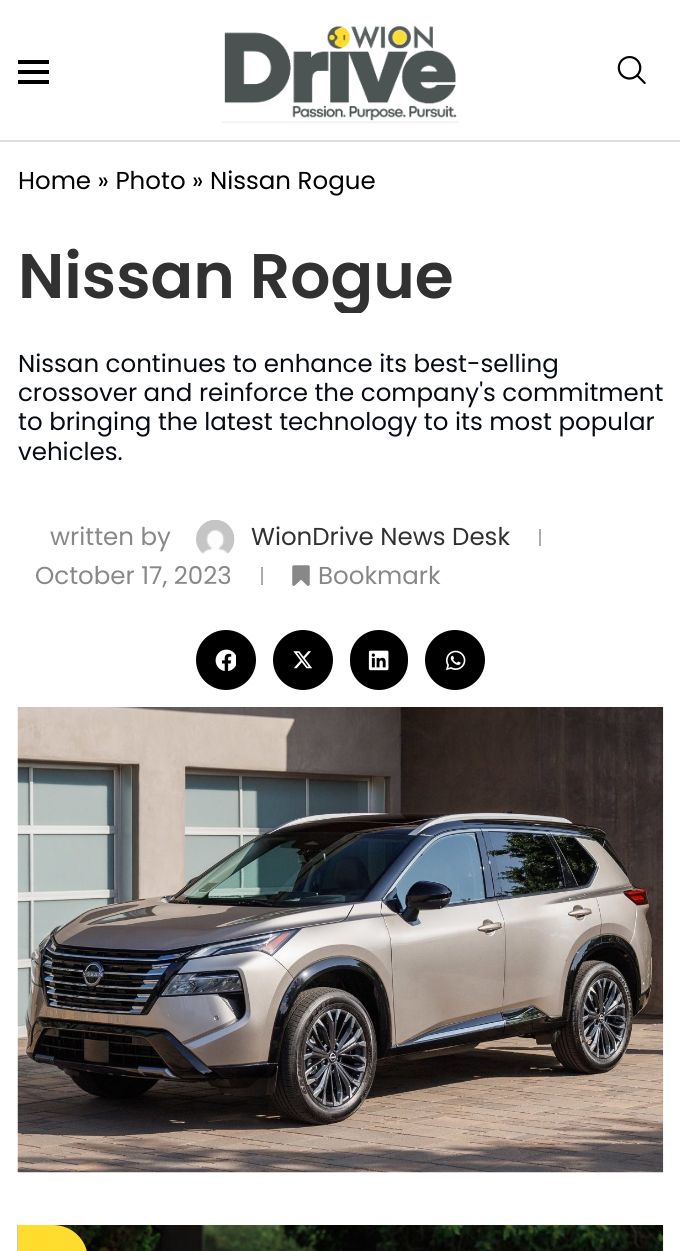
import math
import cairo

surface = cairo.ImageSurface(cairo.Format.RGB24, 680, 1251)
ctx = cairo.Context(surface)
options = cairo.FontOptions()
options.set_hint_metrics(cairo.HintMetrics.OFF)
options.set_hint_style(cairo.HintStyle.NONE)
ctx.set_font_options(options)
ctx.set_miter_limit(4)


def ink(r, g, b):
    ctx.set_source_rgb(r / 255, g / 255, b / 255)


def write(x, y, s, family, size, color, bold=False, italic=False):
    ctx.select_font_face(family, cairo.FontSlant.ITALIC if italic else cairo.FontSlant.NORMAL, cairo.FontWeight.BOLD if bold else cairo.FontWeight.NORMAL)
    ctx.set_font_size(size)
    ink(*color)
    ctx.move_to(x, y)
    ctx.show_text(s)


def block(x, y, w, h, *color):
    ink(*color)
    ctx.rectangle(x, y, w, h)
    ctx.fill()


def round_path(x, y, w, h, r):
    ctx.new_sub_path()
    for i, (u, v) in enumerate([(x + w - r, y + h - r), (x + r, y + h - r), (x + r, y + r), (x + w - r, y + r)]):
        ctx.arc(u, v, r, i * math.pi / 2, (i + 1) * math.pi / 2)
    ctx.close_path()


def paste(path, x, y, w, h):
    ctx.save()
    ctx.set_source_surface(cairo.ImageSurface.create_from_png(path), x, y)
    ctx.rectangle(x, y, w, h)
    ctx.fill()
    ctx.restore()


s1 = dict(family="Poppins", size=24.5, color=(0, 0, 0))
s2 = dict(family="Poppins SemiBold", size=63, color=(49, 49, 49))
s3 = dict(family="Poppins", size=24.5, color=(7, 11, 20))
s4 = dict(family="Poppins", size=24.5, color=(136, 136, 136))
s5 = dict(family="Poppins", size=24.5, color=(49, 49, 49))

ink(255, 255, 255)
ctx.paint()
block(0, 140, 680, 2, 222, 222, 222)
block(18, 60, 31, 4, 0, 0, 0)
block(18, 70, 31, 4, 0, 0, 0)
block(18, 80, 31, 4, 0, 0, 0)
paste("pic1.png", 222, 25, 237, 98)
paste("pic2.png", 617, 56, 29, 28)
write(18, 189, "Home » Photo » Nissan Rogue", **s1)
ctx.save()
ctx.rectangle(18, 238, 645, 75)
ctx.clip()
write(18, 298, "Nissan Rogue", **s2)
ctx.restore()
write(18, 372, "Nissan continues to enhance its best-selling", **s3)
write(18, 401, "crossover and reinforce the company's commitment", **s3)
write(18, 430, "to bringing the latest technology to its most popular", **s3)
write(18, 460, "vehicles.", **s3)
write(50, 545, "written by", **s4)
paste("pic3.png", 196, 520, 39, 34)
write(251, 545, "WionDrive News Desk", **s5)
block(539, 529, 2, 17, 172, 172, 172)
write(35, 584, "October 17, 2023", **s4)
block(261, 567, 2, 18, 172, 172, 172)
paste("pic4.png", 292, 565, 18, 21)
write(318, 584, "Bookmark", **s4)
ink(0, 0, 0)
ctx.new_path()
ctx.arc(226, 660, 30, 0, 2 * math.pi)
ctx.fill()
paste("pic5.png", 215, 649, 21, 22)
ctx.arc(303, 660, 30, 0, 2 * math.pi)
ctx.fill()
paste("pic6.png", 293, 651, 20, 18)
round_path(350, 630, 58, 60, 29)
ctx.fill()
paste("pic7.png", 368, 650, 21, 21)
ctx.arc(455, 660, 30, 0, 2 * math.pi)
ctx.fill()
paste("pic8.png", 446, 650, 20, 21)
paste("pic9.png", 17, 707, 647, 466)
paste("pic10.png", 17, 1225, 647, 26)
ink(254, 221, 46)
ctx.new_path()
ctx.move_to(18, 1225)
ctx.line_to(53, 1225)
ctx.curve_to(72.5, 1225, 88, 1240.5, 88, 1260)
ctx.line_to(88, 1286)
ctx.line_to(18, 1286)
ctx.close_path()
ctx.fill()
surface.write_to_png("screenshot.png")
